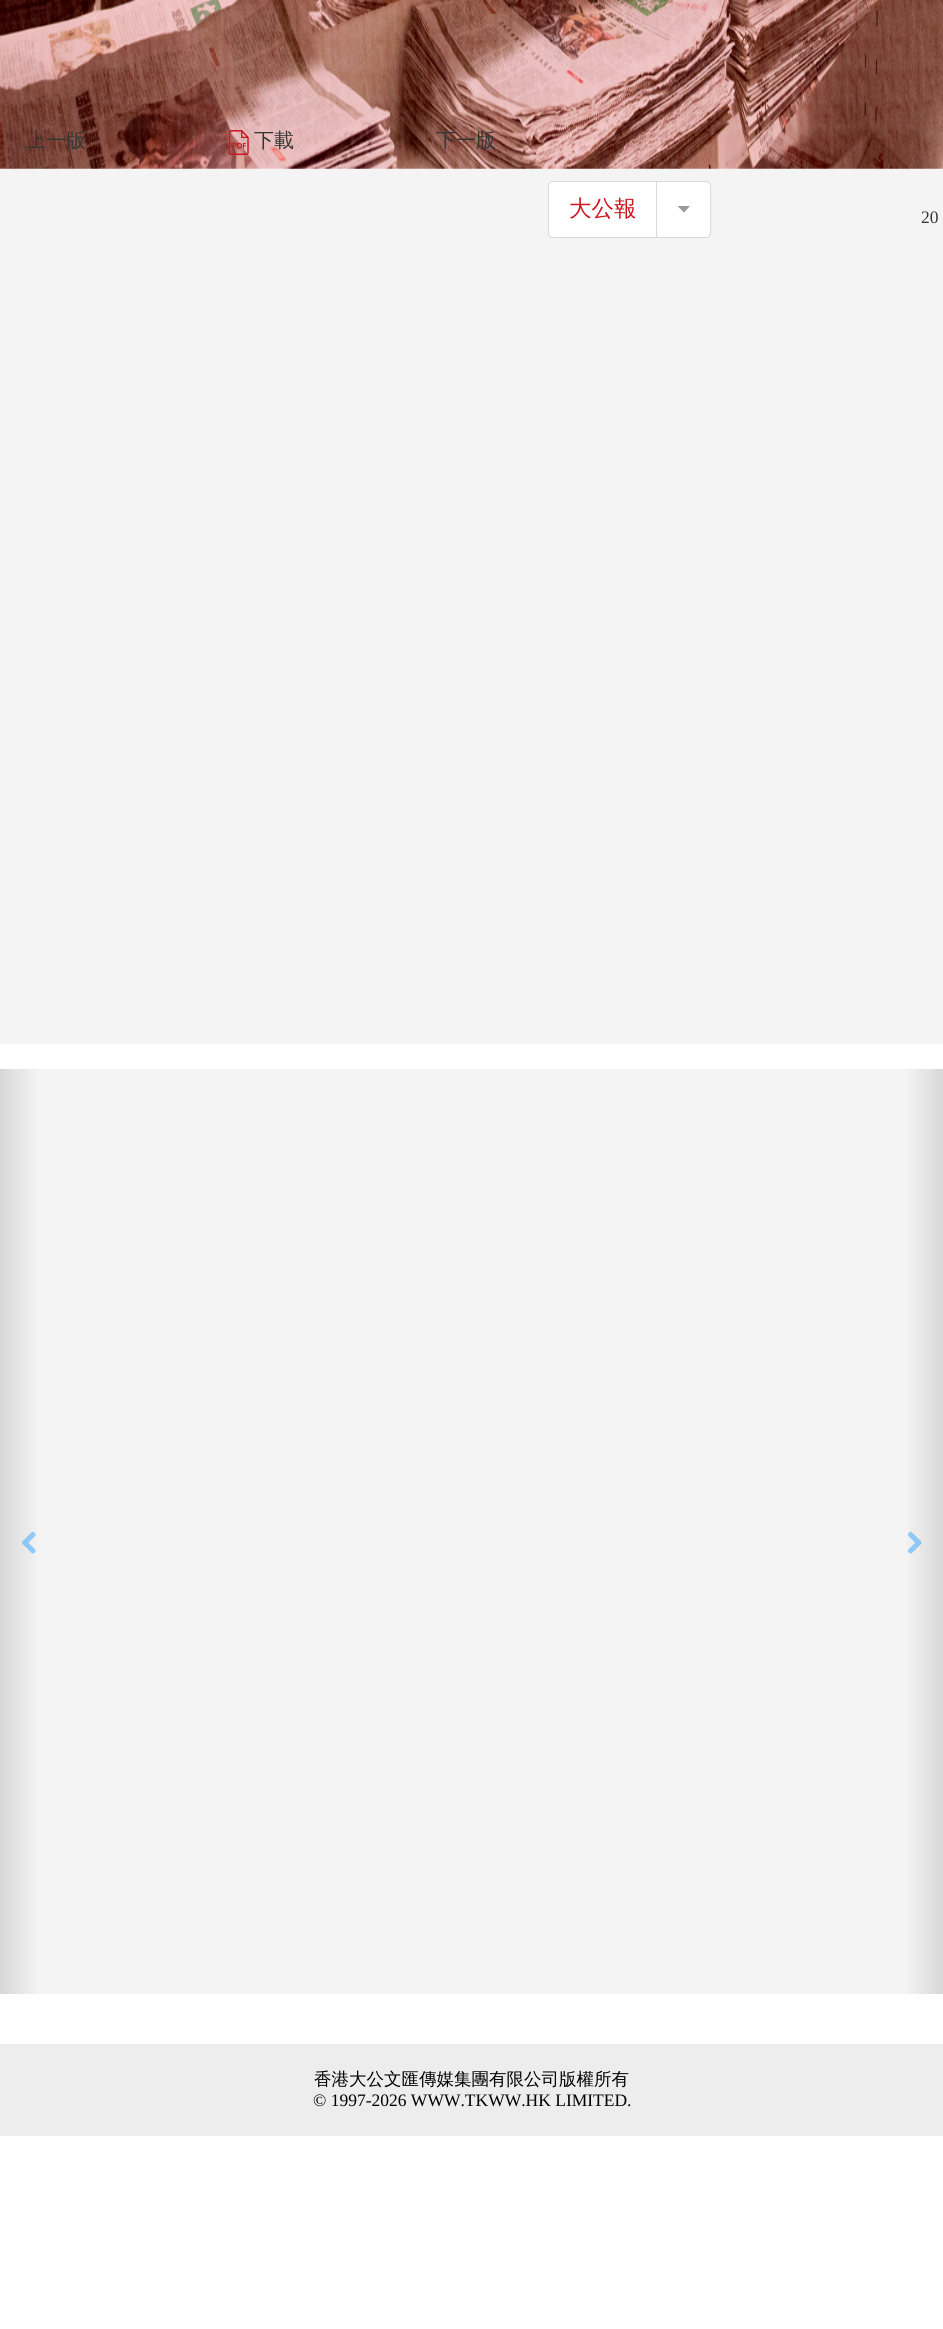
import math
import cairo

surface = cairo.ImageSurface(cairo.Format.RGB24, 943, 2329)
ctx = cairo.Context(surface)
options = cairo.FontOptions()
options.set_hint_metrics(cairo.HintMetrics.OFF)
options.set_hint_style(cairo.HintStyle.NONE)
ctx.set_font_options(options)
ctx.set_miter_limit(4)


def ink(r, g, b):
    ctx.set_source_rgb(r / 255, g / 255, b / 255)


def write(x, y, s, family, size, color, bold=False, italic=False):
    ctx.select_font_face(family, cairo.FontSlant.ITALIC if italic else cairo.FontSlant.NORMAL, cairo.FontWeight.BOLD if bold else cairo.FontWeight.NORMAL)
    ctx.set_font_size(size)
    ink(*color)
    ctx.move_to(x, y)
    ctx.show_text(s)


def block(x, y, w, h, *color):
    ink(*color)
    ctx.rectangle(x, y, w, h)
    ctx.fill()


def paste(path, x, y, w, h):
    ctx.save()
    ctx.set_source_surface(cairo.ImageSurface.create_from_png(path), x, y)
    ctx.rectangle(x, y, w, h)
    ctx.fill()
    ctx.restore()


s1 = dict(family="WenQuanYi Zen Hei Medium", size=20, color=(53, 53, 53))
s2 = dict(family="WenQuanYi Zen Hei Medium", size=22.5, color=(203, 23, 34))
s3 = dict(family="Liberation Serif", size=17.5, color=(53, 53, 53))
s4 = dict(family="WenQuanYi Zen Hei Medium", size=17.5, color=(0, 0, 0))
s5 = dict(family="Liberation Serif", size=17.5, color=(0, 0, 0))

ink(255, 255, 255)
ctx.paint()
paste("pic1.png", 0, 0, 943, 169)
block(0, 169, 943, 875, 244, 244, 244)
write(26, 147, "上一版", **s1)
paste("pic2.png", 228, 130, 21, 25)
write(254, 147, "下載", **s1)
write(436, 147, "下一版", **s1)
ink(255, 255, 255)
ctx.new_path()
ctx.move_to(553, 181.5)
ctx.line_to(657.5, 181.5)
ctx.line_to(657.5, 237.5)
ctx.line_to(553, 237.5)
ctx.curve_to(550.5, 237.5, 548.5, 235.5, 548.5, 233)
ctx.line_to(548.5, 186)
ctx.curve_to(548.5, 183.5, 550.5, 181.5, 553, 181.5)
ctx.close_path()
ctx.fill_preserve()
ink(217, 217, 217)
ctx.set_line_width(1)
ctx.stroke()
write(569, 216, "大公報", **s2)
ink(255, 255, 255)
ctx.new_path()
ctx.move_to(656.5, 181.5)
ctx.line_to(706, 181.5)
ctx.curve_to(708.5, 181.5, 710.5, 183.5, 710.5, 186)
ctx.line_to(710.5, 233)
ctx.curve_to(710.5, 235.5, 708.5, 237.5, 706, 237.5)
ctx.line_to(656.5, 237.5)
ctx.close_path()
ctx.fill_preserve()
ink(217, 217, 217)
ctx.stroke()
ink(154, 154, 154)
ctx.new_path()
ctx.move_to(677.5, 206)
ctx.line_to(690, 206)
ctx.line_to(684, 212.5)
ctx.close_path()
ctx.fill()
write(921, 223, "20", **s3)
block(39, 1069, 866, 925, 244, 244, 244)
gradient = cairo.LinearGradient(0, 1531, 39, 1531)
gradient.add_color_stop_rgba(0, 0.843, 0.843, 0.843, 1)
gradient.add_color_stop_rgba(1, 0.957, 0.957, 0.957, 1)
ctx.set_source(gradient)
ctx.rectangle(0, 1069, 39, 925)
ctx.fill()
paste("pic3.png", 22, 1531, 14, 23)
gradient = cairo.LinearGradient(905, 1531, 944, 1531)
gradient.add_color_stop_rgba(0, 0.957, 0.957, 0.957, 1)
gradient.add_color_stop_rgba(1, 0.843, 0.843, 0.843, 1)
ctx.set_source(gradient)
ctx.rectangle(905, 1069, 38, 925)
ctx.fill()
paste("pic4.png", 907, 1531, 15, 23)
block(0, 2044, 943, 92, 237, 237, 237)
write(314, 2085, "香港大公文匯傳媒集團有限公司版權所有", **s4)
write(313, 2106, "© 1997-2026 WWW.TKWW.HK LIMITED.", **s5)
surface.write_to_png("screenshot.png")
